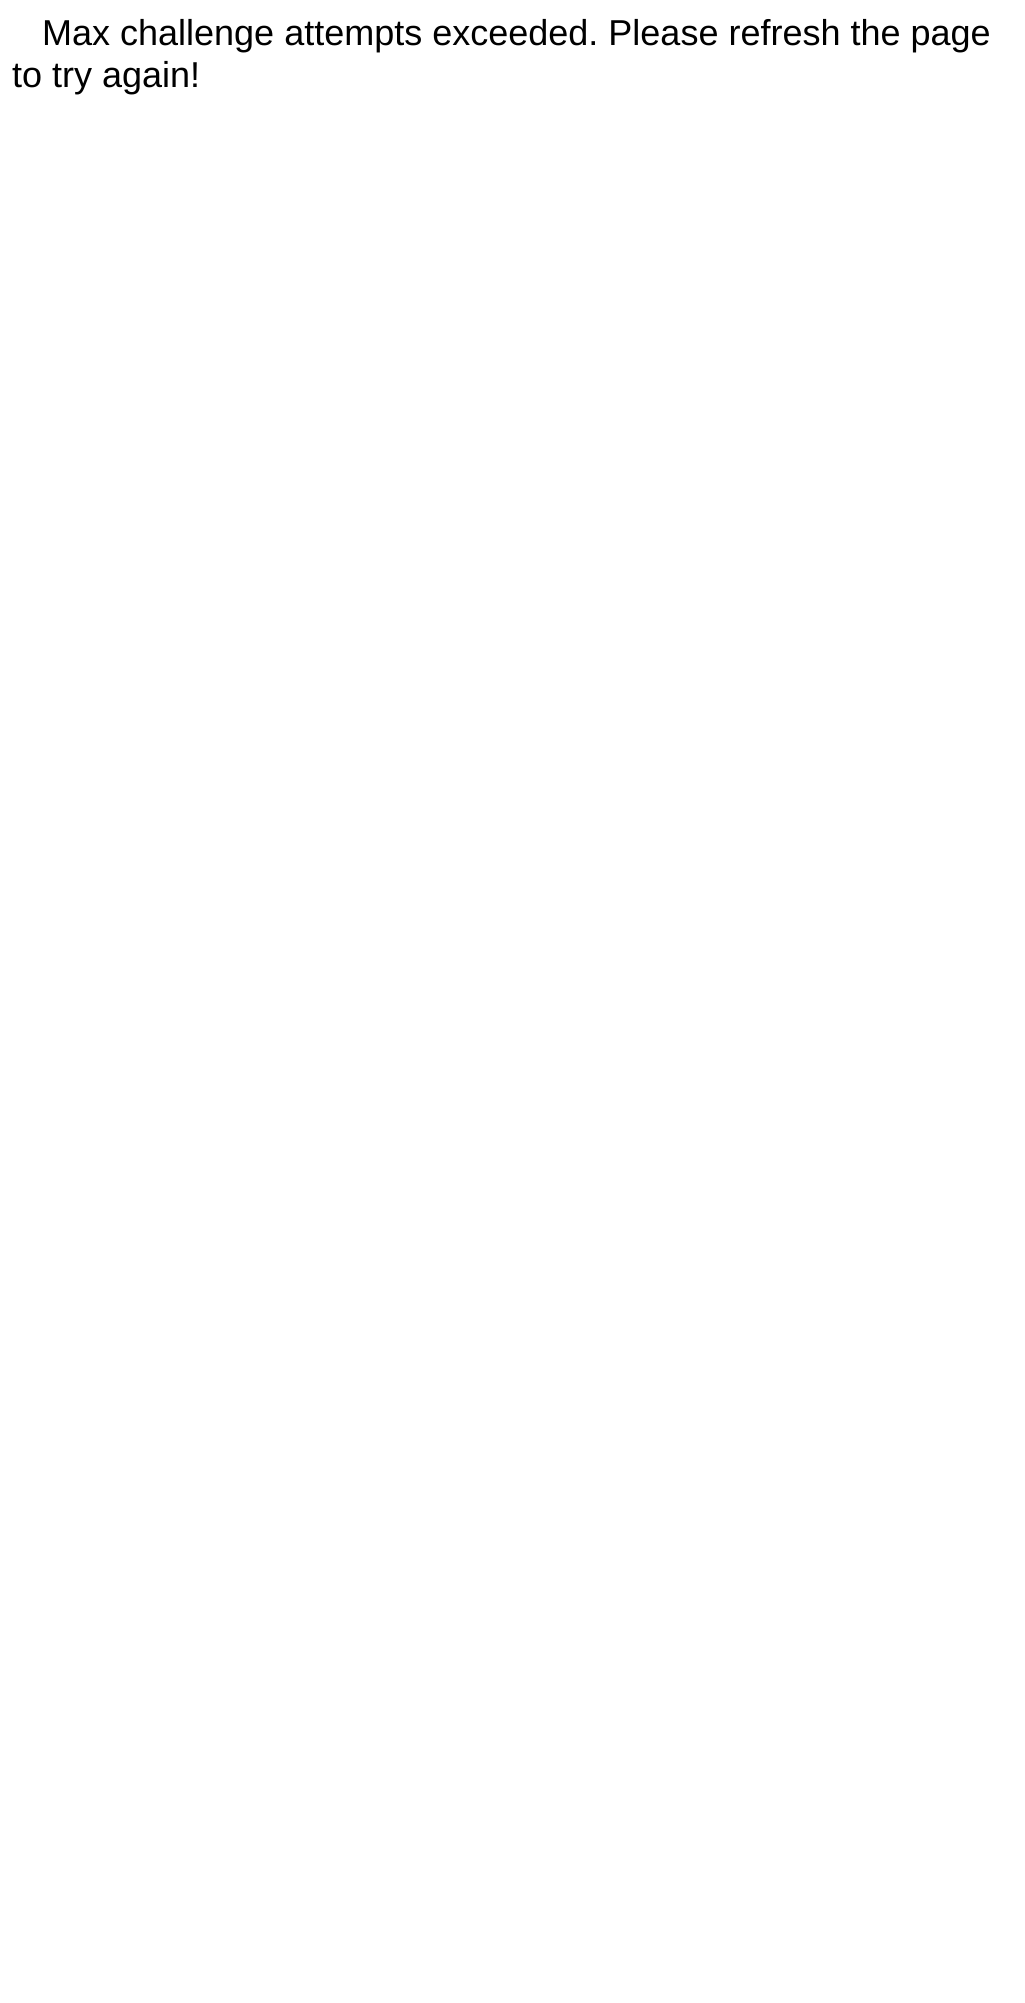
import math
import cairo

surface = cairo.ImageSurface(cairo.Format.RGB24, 1025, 2003)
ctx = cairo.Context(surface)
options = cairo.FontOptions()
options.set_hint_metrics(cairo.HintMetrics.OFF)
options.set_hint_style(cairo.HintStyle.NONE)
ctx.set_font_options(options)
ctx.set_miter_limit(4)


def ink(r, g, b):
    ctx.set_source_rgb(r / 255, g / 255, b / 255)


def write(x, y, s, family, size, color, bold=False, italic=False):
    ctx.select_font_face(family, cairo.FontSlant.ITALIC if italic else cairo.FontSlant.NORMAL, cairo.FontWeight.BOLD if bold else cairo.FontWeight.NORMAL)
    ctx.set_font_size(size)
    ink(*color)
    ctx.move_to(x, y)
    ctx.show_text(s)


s1 = dict(family="Liberation Sans", size=36, color=(0, 0, 0))

ink(255, 255, 255)
ctx.paint()
write(42, 45, "Max challenge attempts exceeded. Please refresh the page", **s1)
write(12, 87, "to try again!", **s1)
surface.write_to_png("screenshot.png")
